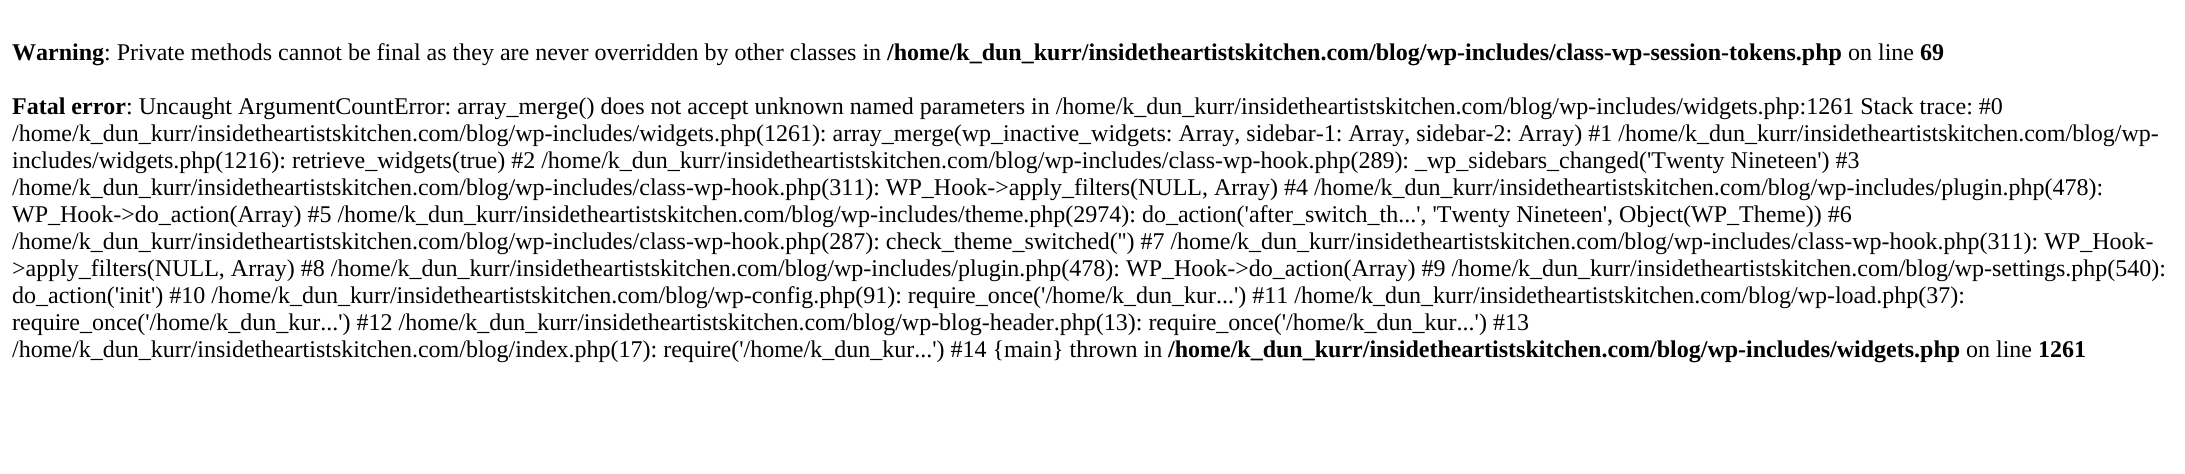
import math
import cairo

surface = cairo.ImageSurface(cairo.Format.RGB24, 2185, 474)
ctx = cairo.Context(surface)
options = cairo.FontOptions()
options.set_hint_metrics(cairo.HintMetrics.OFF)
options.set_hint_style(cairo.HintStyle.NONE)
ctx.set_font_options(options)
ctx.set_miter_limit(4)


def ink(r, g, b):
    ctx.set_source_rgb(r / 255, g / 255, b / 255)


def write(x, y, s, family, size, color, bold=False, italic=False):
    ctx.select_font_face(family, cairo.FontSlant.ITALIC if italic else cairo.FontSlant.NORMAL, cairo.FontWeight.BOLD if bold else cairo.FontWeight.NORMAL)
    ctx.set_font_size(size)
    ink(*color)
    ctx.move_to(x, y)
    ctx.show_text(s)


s1 = dict(family="Liberation Serif", size=24, color=(0, 0, 0), bold=True)
s2 = dict(family="Liberation Serif", size=24, color=(0, 0, 0))

ink(255, 255, 255)
ctx.paint()
write(12, 60, "Warning", **s1)
write(104, 60, ": Private methods cannot be final as they are never overridden by other classes in", **s2)
write(887, 60, "/home/k_dun_kurr/insidetheartistskitchen.com/blog/wp-includes/class-wp-session-tokens.php", **s1)
write(1848, 60, "on line", **s2)
write(1920, 60, "69", **s1)
write(12, 114, "Fatal error", **s1)
write(126, 114, ": Uncaught ArgumentCountError: array_merge() does not accept unknown named parameters in /home/k_dun_kurr/insidetheartistskitchen.com/blog/wp-includes/widgets.php:1261 Stack trace: #0", **s2)
write(12, 141, "/home/k_dun_kurr/insidetheartistskitchen.com/blog/wp-includes/widgets.php(1261): array_merge(wp_inactive_widgets: Array, sidebar-1: Array, sidebar-2: Array) #1 /home/k_dun_kurr/insidetheartistskitchen.com/blog/wp-", **s2)
write(12, 168, "includes/widgets.php(1216): retrieve_widgets(true) #2 /home/k_dun_kurr/insidetheartistskitchen.com/blog/wp-includes/class-wp-hook.php(289): _wp_sidebars_changed('Twenty Nineteen') #3", **s2)
write(12, 195, "/home/k_dun_kurr/insidetheartistskitchen.com/blog/wp-includes/class-wp-hook.php(311): WP_Hook->apply_filters(NULL, Array) #4 /home/k_dun_kurr/insidetheartistskitchen.com/blog/wp-includes/plugin.php(478):", **s2)
write(12, 222, "WP_Hook->do_action(Array) #5 /home/k_dun_kurr/insidetheartistskitchen.com/blog/wp-includes/theme.php(2974): do_action('after_switch_th...', 'Twenty Nineteen', Object(WP_Theme)) #6", **s2)
write(12, 249, "/home/k_dun_kurr/insidetheartistskitchen.com/blog/wp-includes/class-wp-hook.php(287): check_theme_switched('') #7 /home/k_dun_kurr/insidetheartistskitchen.com/blog/wp-includes/class-wp-hook.php(311): WP_Hook-", **s2)
write(12, 276, ">apply_filters(NULL, Array) #8 /home/k_dun_kurr/insidetheartistskitchen.com/blog/wp-includes/plugin.php(478): WP_Hook->do_action(Array) #9 /home/k_dun_kurr/insidetheartistskitchen.com/blog/wp-settings.php(540):", **s2)
write(12, 303, "do_action('init') #10 /home/k_dun_kurr/insidetheartistskitchen.com/blog/wp-config.php(91): require_once('/home/k_dun_kur...') #11 /home/k_dun_kurr/insidetheartistskitchen.com/blog/wp-load.php(37):", **s2)
write(12, 330, "require_once('/home/k_dun_kur...') #12 /home/k_dun_kurr/insidetheartistskitchen.com/blog/wp-blog-header.php(13): require_once('/home/k_dun_kur...') #13", **s2)
write(12, 357, "/home/k_dun_kurr/insidetheartistskitchen.com/blog/index.php(17): require('/home/k_dun_kur...') #14 {main} thrown in", **s2)
write(1168, 357, "/home/k_dun_kurr/insidetheartistskitchen.com/blog/wp-includes/widgets.php", **s1)
write(1966, 357, "on line", **s2)
write(2038, 357, "1261", **s1)
surface.write_to_png("screenshot.png")
